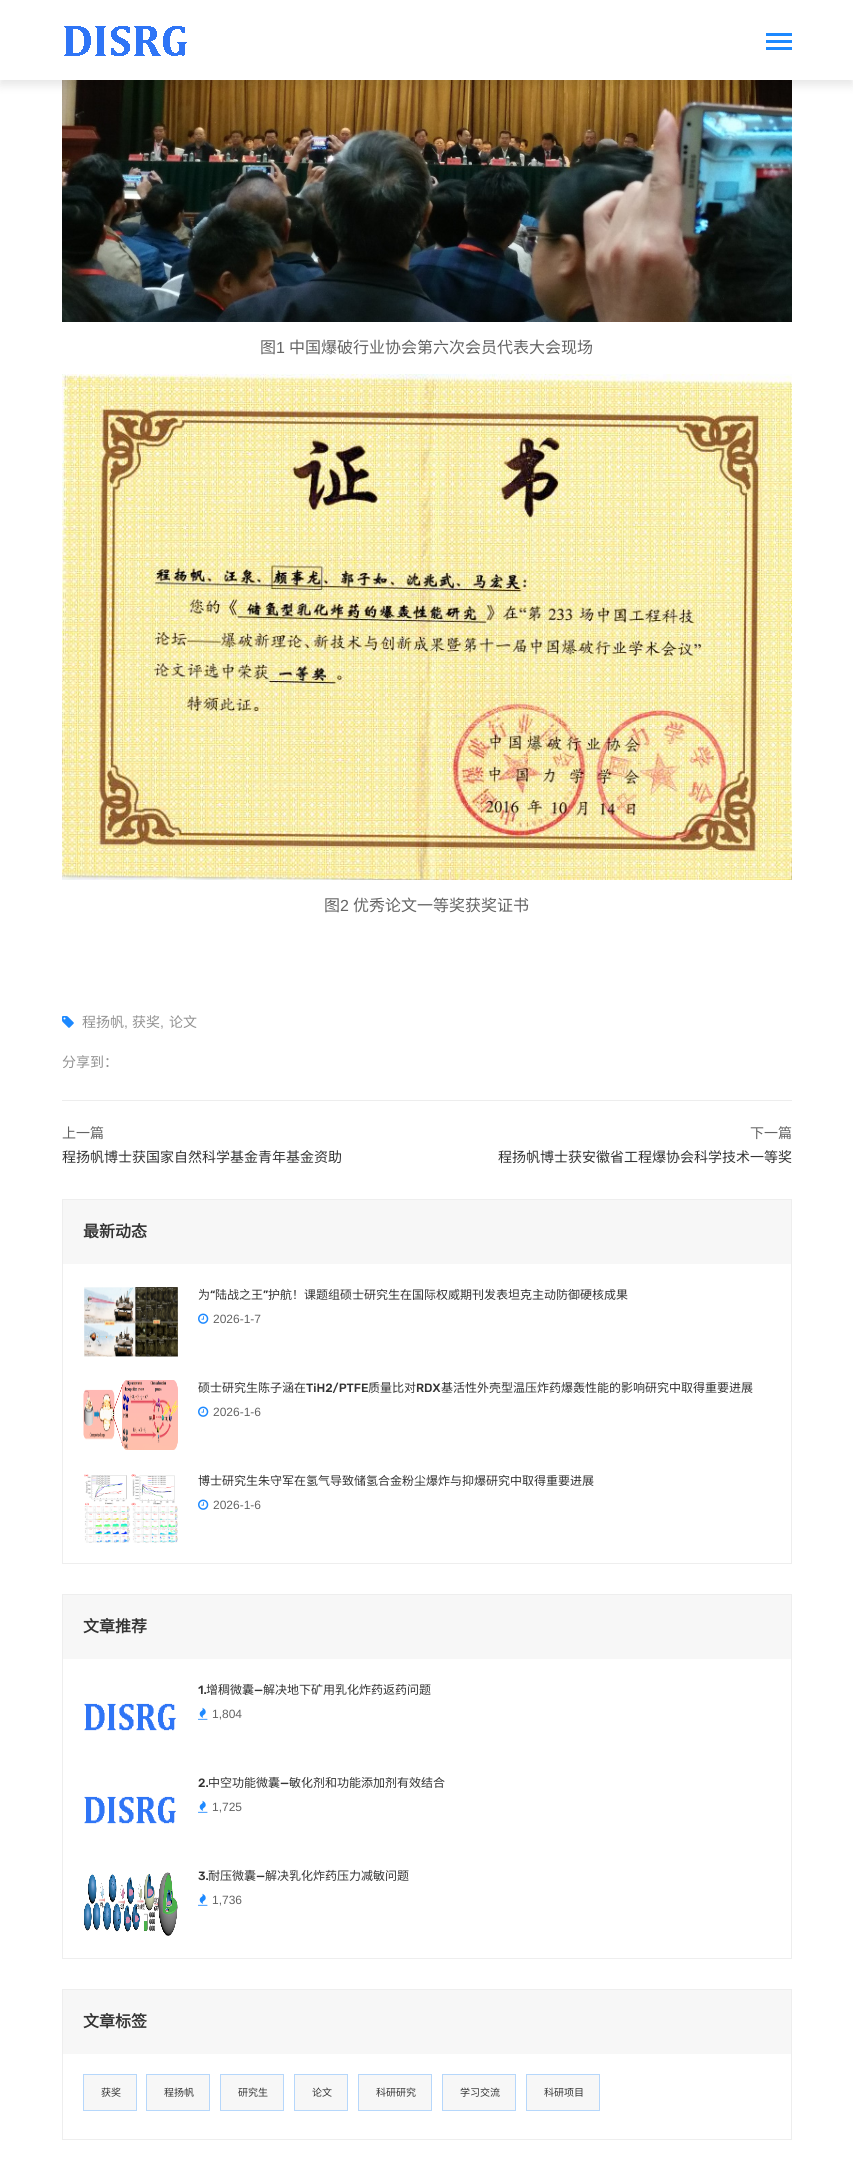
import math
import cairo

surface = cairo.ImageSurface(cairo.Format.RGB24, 853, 2167)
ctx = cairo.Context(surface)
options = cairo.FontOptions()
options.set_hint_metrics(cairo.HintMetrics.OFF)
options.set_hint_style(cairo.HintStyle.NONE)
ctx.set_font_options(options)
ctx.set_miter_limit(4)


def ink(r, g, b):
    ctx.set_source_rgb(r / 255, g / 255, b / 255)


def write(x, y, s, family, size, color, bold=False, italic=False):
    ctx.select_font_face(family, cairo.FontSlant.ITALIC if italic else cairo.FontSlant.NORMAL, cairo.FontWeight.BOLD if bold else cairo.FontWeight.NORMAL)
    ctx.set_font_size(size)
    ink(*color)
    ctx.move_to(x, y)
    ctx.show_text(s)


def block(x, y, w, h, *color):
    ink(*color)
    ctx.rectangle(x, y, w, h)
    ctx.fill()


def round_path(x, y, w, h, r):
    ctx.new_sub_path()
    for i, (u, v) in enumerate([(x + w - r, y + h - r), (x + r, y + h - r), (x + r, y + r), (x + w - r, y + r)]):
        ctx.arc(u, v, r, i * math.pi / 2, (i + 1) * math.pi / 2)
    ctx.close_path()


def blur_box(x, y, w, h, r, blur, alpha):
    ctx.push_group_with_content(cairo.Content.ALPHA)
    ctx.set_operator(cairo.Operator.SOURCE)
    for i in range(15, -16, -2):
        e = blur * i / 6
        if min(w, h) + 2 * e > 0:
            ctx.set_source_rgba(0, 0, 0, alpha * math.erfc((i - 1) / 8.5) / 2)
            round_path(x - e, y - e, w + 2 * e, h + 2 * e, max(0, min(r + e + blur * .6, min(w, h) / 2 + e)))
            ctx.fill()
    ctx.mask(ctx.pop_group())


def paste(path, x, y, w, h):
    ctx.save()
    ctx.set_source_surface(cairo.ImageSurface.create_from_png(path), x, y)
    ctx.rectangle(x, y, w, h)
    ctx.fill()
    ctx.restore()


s1 = dict(family="Noto Sans CJK SC", size=16, color=(99, 99, 99))
s2 = dict(family="Liberation Sans", size=16, color=(99, 99, 99))
s3 = dict(family="Noto Sans CJK SC", size=14, color=(146, 146, 146))
s4 = dict(family="Liberation Sans", size=14, color=(146, 146, 146))
s5 = dict(family="Noto Sans CJK SC", size=14, color=(99, 99, 99))
s6 = dict(family="Noto Sans CJK SC", size=14, color=(51, 51, 51))
s7 = dict(family="Noto Sans CJK SC", size=16, color=(51, 51, 51), bold=True)
s8 = dict(family="Noto Sans CJK SC", size=12, color=(51, 51, 51))
s9 = dict(family="Rubik Medium", size=12, color=(51, 51, 51))
s10 = dict(family="Liberation Sans", size=12, color=(99, 99, 99))
s11 = dict(family="Noto Sans CJK SC", size=10, color=(51, 51, 51))

ink(255, 255, 255)
ctx.paint()
paste("pic2.png", 62, 80, 730, 242)
ink(0, 0, 0)
blur_box(0, 5, 853, 80, 0, 5, 0.1)
block(0, 0, 853, 80, 255, 255, 255)
paste("pic1.png", 64, 26, 123, 30)
block(766, 33, 26, 3, 29, 137, 255)
block(766, 40, 26, 3, 29, 137, 255)
block(766, 47, 26, 3, 29, 137, 255)
write(260, 353, "图", **s1)
write(276, 353, "1", **s2)
write(289, 353, "中国爆破行业协会第六次会员代表大会现场", **s1)
paste("pic3.png", 62, 374, 730, 506)
write(324, 911, "图", **s1)
write(340, 911, "2", **s2)
write(353, 911, "优秀论文一等奖获奖证书", **s1)
paste("pic4.png", 62, 1016, 12, 12)
write(82, 1027, "程扬帆", **s3)
write(124, 1027, ",", **s4)
write(132, 1027, "获奖", **s3)
write(160, 1027, ",", **s4)
write(169, 1027, "论文", **s3)
block(62, 1100, 730, 1, 237, 237, 237)
write(62, 1067, "分享到：", **s3)
write(62, 1138, "上一篇", **s5)
write(62, 1162, "程扬帆博士获国家自然科学基金青年基金资助", **s6)
write(750, 1138, "下一篇", **s5)
write(498, 1162, "程扬帆博士获安徽省工程爆协会科学技术一等奖", **s6)
ctx.rectangle(62.5, 1199.5, 729, 364)
ink(238, 238, 238)
ctx.set_line_width(1)
ctx.stroke()
block(63, 1200, 728, 64, 247, 247, 247)
write(83, 1237, "最新动态", **s7)
paste("pic5.png", 84, 1287, 94, 70)
write(198, 1299, "为", **s8)
write(210, 1299, "“", **s9)
write(215, 1299, "陆战之王", **s8)
write(263, 1299, "”", **s9)
write(268, 1299, "护航！课题组硕士研究生在国际权威期刊发表坦克主动防御硬核成果", **s8)
paste("pic6.png", 198, 1313, 11, 11)
write(213, 1323, "2026-1-7", **s10)
paste("pic7.png", 83, 1380, 95, 70)
write(198, 1392, "硕士研究生陈子涵在", **s8)
write(306, 1392, "TiH2/PTFE", **s9)
write(368, 1392, "质量比对", **s8)
write(416, 1392, "RDX", **s9)
write(441, 1392, "基活性外壳型温压炸药爆轰性能的影响研究中取得重要进展", **s8)
paste("pic6.png", 198, 1406, 11, 11)
write(213, 1416, "2026-1-6", **s10)
paste("pic8.png", 84, 1474, 94, 69)
write(198, 1485, "博士研究生朱守军在氢气导致储氢合金粉尘爆炸与抑爆研究中取得重要进展", **s8)
paste("pic6.png", 198, 1499, 11, 11)
write(213, 1509, "2026-1-6", **s10)
ctx.rectangle(62.5, 1594.5, 729, 364)
ink(238, 238, 238)
ctx.stroke()
block(63, 1595, 728, 64, 247, 247, 247)
write(83, 1632, "文章推荐", **s7)
paste("pic9.png", 84, 1703, 92, 28)
write(198, 1694, "1.", **s9)
write(206, 1694, "增稠微囊", **s8)
write(254, 1694, "—", **s9)
write(263, 1694, "解决地下矿用乳化炸药返药问题", **s8)
paste("pic10.png", 198, 1707, 10, 13)
write(212, 1718, "1,804", **s10)
paste("pic9.png", 84, 1796, 92, 28)
write(198, 1787, "2.", **s9)
write(208, 1787, "中空功能微囊", **s8)
write(280, 1787, "—", **s9)
write(289, 1787, "敏化剂和功能添加剂有效结合", **s8)
paste("pic10.png", 198, 1800, 10, 13)
write(212, 1811, "1,725", **s10)
paste("pic11.png", 84, 1872, 94, 64)
write(198, 1880, "3.", **s9)
write(208, 1880, "耐压微囊", **s8)
write(256, 1880, "—", **s9)
write(265, 1880, "解决乳化炸药压力减敏问题", **s8)
paste("pic10.png", 198, 1893, 10, 13)
write(212, 1904, "1,736", **s10)
ctx.rectangle(62.5, 1989.5, 729, 150)
ink(238, 238, 238)
ctx.stroke()
block(63, 1990, 728, 64, 247, 247, 247)
write(83, 2027, "文章标签", **s7)
ink(247, 247, 247)
ctx.rectangle(83.5, 2074.5, 53, 36)
ctx.fill_preserve()
ink(182, 215, 251)
ctx.stroke()
write(101, 2096, "获奖", **s11)
ink(247, 247, 247)
ctx.rectangle(146.5, 2074.5, 63, 36)
ctx.fill_preserve()
ink(182, 215, 251)
ctx.stroke()
write(164, 2096, "程扬帆", **s11)
ink(247, 247, 247)
ctx.rectangle(220.5, 2074.5, 63, 36)
ctx.fill_preserve()
ink(182, 215, 251)
ctx.stroke()
write(238, 2096, "研究生", **s11)
ink(247, 247, 247)
ctx.rectangle(294.5, 2074.5, 53, 36)
ctx.fill_preserve()
ink(182, 215, 251)
ctx.stroke()
write(312, 2096, "论文", **s11)
ink(247, 247, 247)
ctx.rectangle(358.5, 2074.5, 73, 36)
ctx.fill_preserve()
ink(182, 215, 251)
ctx.stroke()
write(376, 2096, "科研研究", **s11)
ink(247, 247, 247)
ctx.rectangle(442.5, 2074.5, 73, 36)
ctx.fill_preserve()
ink(182, 215, 251)
ctx.stroke()
write(460, 2096, "学习交流", **s11)
ink(247, 247, 247)
ctx.rectangle(526.5, 2074.5, 73, 36)
ctx.fill_preserve()
ink(182, 215, 251)
ctx.stroke()
write(544, 2096, "科研项目", **s11)
surface.write_to_png("screenshot.png")
